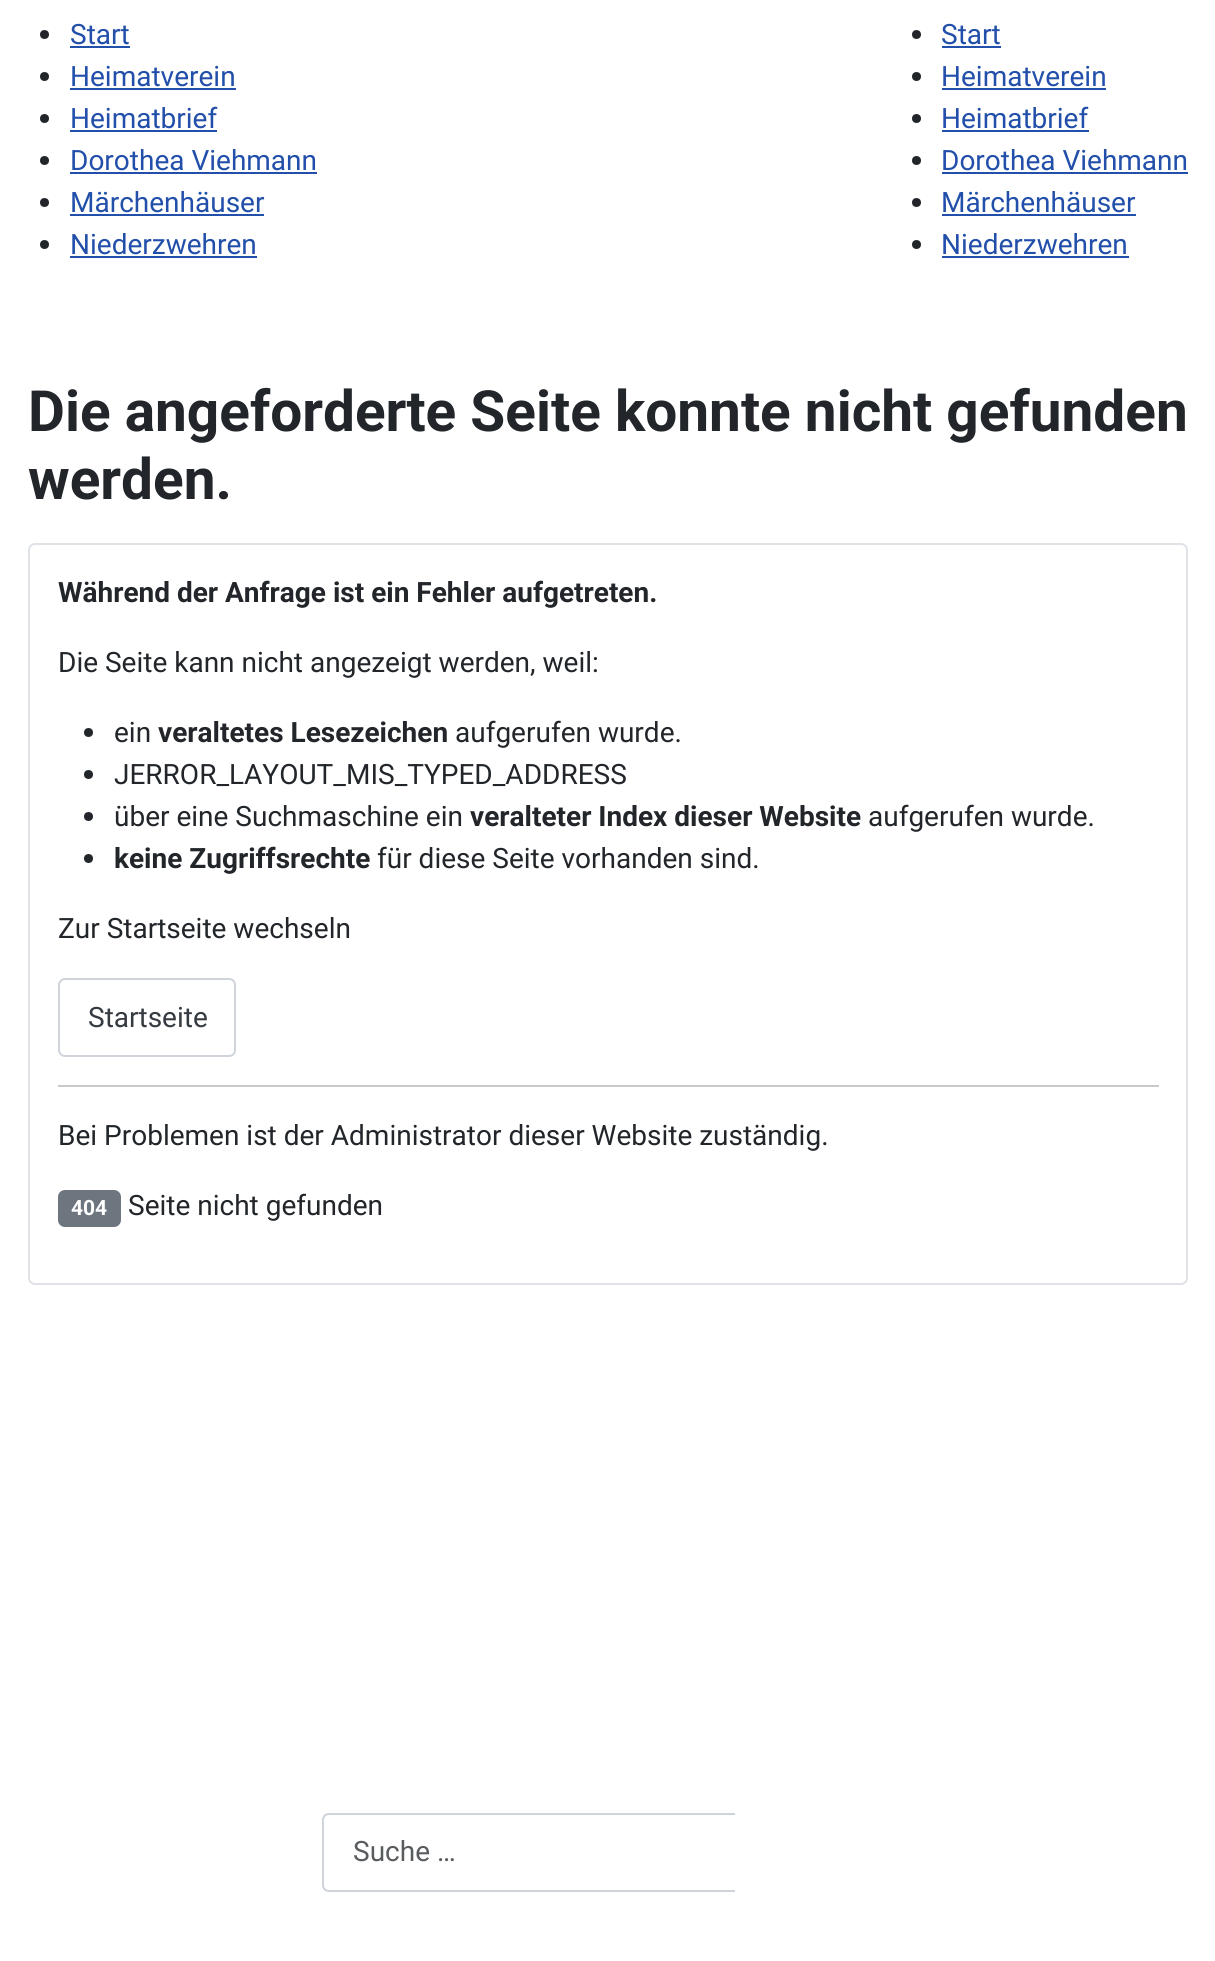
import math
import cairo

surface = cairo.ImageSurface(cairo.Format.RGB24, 1215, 1961)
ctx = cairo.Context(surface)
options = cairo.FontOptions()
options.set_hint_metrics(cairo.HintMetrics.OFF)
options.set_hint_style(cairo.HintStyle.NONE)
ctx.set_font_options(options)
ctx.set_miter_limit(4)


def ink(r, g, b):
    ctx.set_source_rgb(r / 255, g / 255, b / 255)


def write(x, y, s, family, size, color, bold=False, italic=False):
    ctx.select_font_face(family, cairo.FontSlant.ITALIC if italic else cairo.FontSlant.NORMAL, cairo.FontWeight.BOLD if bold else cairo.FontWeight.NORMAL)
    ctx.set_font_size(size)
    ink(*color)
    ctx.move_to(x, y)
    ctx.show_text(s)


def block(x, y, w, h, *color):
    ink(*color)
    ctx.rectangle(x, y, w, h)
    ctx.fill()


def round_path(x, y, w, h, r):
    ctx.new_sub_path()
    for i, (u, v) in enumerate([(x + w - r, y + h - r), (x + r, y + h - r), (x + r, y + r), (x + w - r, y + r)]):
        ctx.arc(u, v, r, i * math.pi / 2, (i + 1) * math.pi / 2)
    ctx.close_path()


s1 = dict(family="Roboto", size=28, color=(34, 79, 170))
s2 = dict(family="Roboto", size=56.75, color=(34, 38, 42), bold=True)
s3 = dict(family="Roboto", size=28, color=(34, 38, 42), bold=True)
s4 = dict(family="Roboto", size=28, color=(34, 38, 42))
s5 = dict(family="Roboto", size=28, color=(53, 59, 65))
s6 = dict(family="Roboto", size=21, color=(255, 255, 255), bold=True)
s7 = dict(family="Roboto", size=28, color=(89, 92, 95))

ink(255, 255, 255)
ctx.paint()
ink(34, 38, 42)
ctx.arc(44.5, 34.5, 4.5, 0, 2 * math.pi)
ctx.fill()
write(70, 44, "Start", **s1)
block(70, 46, 60, 2, 34, 79, 170)
ink(34, 38, 42)
ctx.new_path()
ctx.arc(44.5, 76.5, 4.5, 0, 2 * math.pi)
ctx.fill()
write(70, 86, "Heimatverein", **s1)
block(70, 88, 166, 2, 34, 79, 170)
ink(34, 38, 42)
ctx.new_path()
ctx.arc(44.5, 118.5, 4.5, 0, 2 * math.pi)
ctx.fill()
write(70, 128, "Heimatbrief", **s1)
block(70, 130, 147, 2, 34, 79, 170)
ink(34, 38, 42)
ctx.new_path()
ctx.arc(44.5, 160.5, 4.5, 0, 2 * math.pi)
ctx.fill()
write(70, 170, "Dorothea Viehmann", **s1)
block(70, 172, 247, 2, 34, 79, 170)
ink(34, 38, 42)
ctx.new_path()
ctx.arc(44.5, 202.5, 4.5, 0, 2 * math.pi)
ctx.fill()
write(70, 212, "Märchenhäuser", **s1)
block(70, 214, 194, 2, 34, 79, 170)
ink(34, 38, 42)
ctx.new_path()
ctx.arc(44.5, 244.5, 4.5, 0, 2 * math.pi)
ctx.fill()
write(70, 254, "Niederzwehren", **s1)
block(70, 256, 187, 2, 34, 79, 170)
ink(34, 38, 42)
ctx.new_path()
ctx.arc(916.5, 34.5, 4.5, 0, 2 * math.pi)
ctx.fill()
write(941, 44, "Start", **s1)
block(942, 46, 59, 2, 34, 79, 170)
ink(34, 38, 42)
ctx.new_path()
ctx.arc(916.5, 76.5, 4.5, 0, 2 * math.pi)
ctx.fill()
write(941, 86, "Heimatverein", **s1)
block(942, 88, 164, 2, 34, 79, 170)
ink(34, 38, 42)
ctx.new_path()
ctx.arc(916.5, 118.5, 4.5, 0, 2 * math.pi)
ctx.fill()
write(941, 128, "Heimatbrief", **s1)
block(942, 130, 147, 2, 34, 79, 170)
ink(34, 38, 42)
ctx.new_path()
ctx.arc(916.5, 160.5, 4.5, 0, 2 * math.pi)
ctx.fill()
write(941, 170, "Dorothea Viehmann", **s1)
block(942, 172, 246, 2, 34, 79, 170)
ink(34, 38, 42)
ctx.new_path()
ctx.arc(916.5, 202.5, 4.5, 0, 2 * math.pi)
ctx.fill()
write(941, 212, "Märchenhäuser", **s1)
block(942, 214, 194, 2, 34, 79, 170)
ink(34, 38, 42)
ctx.new_path()
ctx.arc(916.5, 244.5, 4.5, 0, 2 * math.pi)
ctx.fill()
write(941, 254, "Niederzwehren", **s1)
block(942, 256, 187, 2, 34, 79, 170)
write(28, 431, "Die angeforderte Seite konnte nicht gefunden", **s2)
write(28, 499, "werden.", **s2)
round_path(29, 544, 1158, 740, 6)
ink(223, 227, 231)
ctx.stroke()
write(58, 602, "Während der Anfrage ist ein Fehler aufgetreten.", **s3)
write(58, 672, "Die Seite kann nicht angezeigt werden, weil:", **s4)
ctx.new_path()
ctx.arc(88.5, 732.5, 4.5, 0, 2 * math.pi)
ctx.fill()
write(114, 742, "ein", **s4)
write(158, 742, "veraltetes Lesezeichen", **s3)
write(455, 742, "aufgerufen wurde.", **s4)
ctx.new_path()
ctx.arc(88.5, 774.5, 4.5, 0, 2 * math.pi)
ctx.fill()
write(114, 784, "JERROR_LAYOUT_MIS_TYPED_ADDRESS", **s4)
ctx.new_path()
ctx.arc(88.5, 816.5, 4.5, 0, 2 * math.pi)
ctx.fill()
write(114, 826, "über eine Suchmaschine ein", **s4)
write(470, 826, "veralteter Index dieser Website", **s3)
write(868, 826, "aufgerufen wurde.", **s4)
ctx.new_path()
ctx.arc(88.5, 858.5, 4.5, 0, 2 * math.pi)
ctx.fill()
write(114, 868, "keine Zugriffsrechte", **s3)
write(377, 868, "für diese Seite vorhanden sind.", **s4)
write(58, 938, "Zur Startseite wechseln", **s4)
round_path(59, 979, 176, 77, 6)
ink(206, 212, 218)
ctx.stroke()
write(88, 1027, "Startseite", **s5)
block(58, 1085, 1101, 2, 200, 201, 202)
write(58, 1145, "Bei Problemen ist der Administrator dieser Website zuständig.", **s4)
ink(109, 117, 126)
round_path(58, 1190, 63, 37, 7)
ctx.fill()
write(71, 1215, "404", **s6)
write(128, 1215, "Seite nicht gefunden", **s4)
ctx.new_path()
ctx.move_to(329, 1814)
ctx.line_to(736, 1814)
ctx.line_to(736, 1891)
ctx.line_to(329, 1891)
ctx.curve_to(325.5, 1891, 323, 1888.5, 323, 1885)
ctx.line_to(323, 1820)
ctx.curve_to(323, 1816.5, 325.5, 1814, 329, 1814)
ctx.close_path()
ink(206, 212, 218)
ctx.stroke()
write(353, 1861, "Suche …", **s7)
ctx.new_path()
ctx.move_to(736, 1814)
ctx.line_to(887, 1814)
ctx.curve_to(890.5, 1814, 893, 1816.5, 893, 1820)
ctx.line_to(893, 1885)
ctx.curve_to(893, 1888.5, 890.5, 1891, 887, 1891)
ctx.line_to(736, 1891)
ctx.close_path()
ink(255, 255, 255)
ctx.stroke()
surface.write_to_png("screenshot.png")
